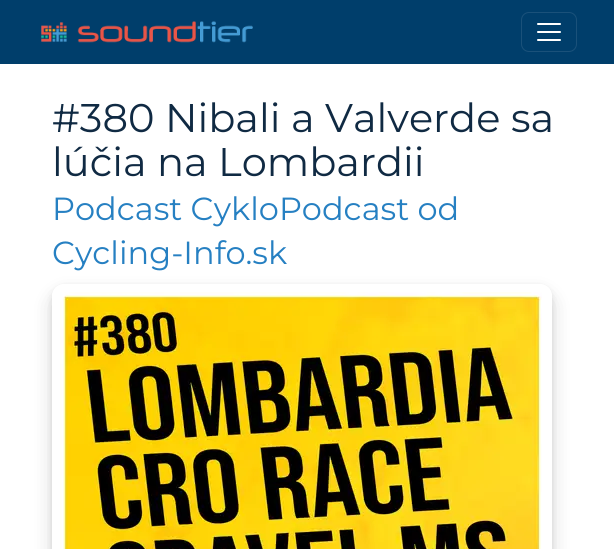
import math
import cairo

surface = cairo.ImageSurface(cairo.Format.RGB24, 614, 549)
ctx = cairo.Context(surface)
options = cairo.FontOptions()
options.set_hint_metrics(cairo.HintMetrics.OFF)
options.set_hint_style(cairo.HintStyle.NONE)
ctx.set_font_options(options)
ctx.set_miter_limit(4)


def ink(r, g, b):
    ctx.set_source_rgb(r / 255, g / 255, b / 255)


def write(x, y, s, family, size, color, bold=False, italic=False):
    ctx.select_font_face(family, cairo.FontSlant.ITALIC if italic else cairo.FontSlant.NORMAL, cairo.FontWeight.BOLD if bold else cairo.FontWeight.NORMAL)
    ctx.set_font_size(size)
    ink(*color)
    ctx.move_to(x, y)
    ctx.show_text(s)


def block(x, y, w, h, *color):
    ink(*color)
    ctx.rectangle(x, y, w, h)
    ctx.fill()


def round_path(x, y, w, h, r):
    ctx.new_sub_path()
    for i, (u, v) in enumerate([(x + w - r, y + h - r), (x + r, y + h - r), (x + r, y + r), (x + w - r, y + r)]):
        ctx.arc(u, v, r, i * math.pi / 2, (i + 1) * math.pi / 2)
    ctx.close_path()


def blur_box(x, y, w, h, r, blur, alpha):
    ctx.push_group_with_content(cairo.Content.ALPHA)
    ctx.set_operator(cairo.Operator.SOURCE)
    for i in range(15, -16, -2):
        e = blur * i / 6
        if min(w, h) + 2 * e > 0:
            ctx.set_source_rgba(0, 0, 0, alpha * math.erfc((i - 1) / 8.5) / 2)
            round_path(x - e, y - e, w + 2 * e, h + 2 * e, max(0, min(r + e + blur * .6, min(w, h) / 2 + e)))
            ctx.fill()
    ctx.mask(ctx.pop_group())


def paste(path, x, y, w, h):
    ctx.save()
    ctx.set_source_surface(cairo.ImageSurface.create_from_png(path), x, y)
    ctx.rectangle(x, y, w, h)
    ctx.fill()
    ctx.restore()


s1 = dict(family="Montserrat Thin", size=40, color=(16, 42, 67))
s2 = dict(family="Montserrat Thin", size=32, color=(38, 128, 194))

ink(255, 255, 255)
ctx.paint()
block(0, 0, 614, 64, 0, 62, 107)
paste("pic1.png", 41, 21, 212, 22)
round_path(521.5, 12.5, 55, 39, 7.5)
ink(26, 81, 122)
ctx.set_line_width(1)
ctx.stroke()
paste("pic2.png", 537, 23, 24, 18)
write(52, 132, "#380 Nibali a Valverde sa", **s1)
write(52, 176, "lúčia na Lombardii", **s1)
write(52, 220, "Podcast CykloPodcast od", **s2)
write(52, 264, "Cycling-Info.sk", **s2)
ctx.save()
ctx.set_fill_rule(cairo.FillRule.EVEN_ODD)
ctx.new_path()
ctx.move_to(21, 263)
ctx.line_to(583, 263)
ctx.line_to(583, 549)
ctx.line_to(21, 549)
ctx.close_path()
ctx.move_to(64, 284)
ctx.line_to(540, 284)
ctx.curve_to(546.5, 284, 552, 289.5, 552, 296)
ctx.line_to(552, 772)
ctx.curve_to(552, 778.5, 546.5, 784, 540, 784)
ctx.line_to(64, 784)
ctx.curve_to(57.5, 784, 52, 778.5, 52, 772)
ctx.line_to(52, 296)
ctx.curve_to(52, 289.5, 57.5, 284, 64, 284)
ctx.close_path()
ctx.clip()
ink(0, 0, 0)
blur_box(52, 294, 500, 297, 12, 10, 0.15)
ctx.restore()
ctx.save()
ctx.set_fill_rule(cairo.FillRule.EVEN_ODD)
ctx.new_path()
ctx.move_to(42, 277)
ctx.line_to(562, 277)
ctx.line_to(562, 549)
ctx.line_to(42, 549)
ctx.close_path()
ctx.move_to(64, 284)
ctx.line_to(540, 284)
ctx.curve_to(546.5, 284, 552, 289.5, 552, 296)
ctx.line_to(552, 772)
ctx.curve_to(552, 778.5, 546.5, 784, 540, 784)
ctx.line_to(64, 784)
ctx.curve_to(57.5, 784, 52, 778.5, 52, 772)
ctx.line_to(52, 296)
ctx.curve_to(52, 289.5, 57.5, 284, 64, 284)
ctx.close_path()
ctx.clip()
ink(0, 0, 0)
blur_box(52, 287, 500, 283, 12, 3, 0.1)
ctx.restore()
paste("pic3.png", 60, 292, 482, 257)
surface.write_to_png("screenshot.png")
